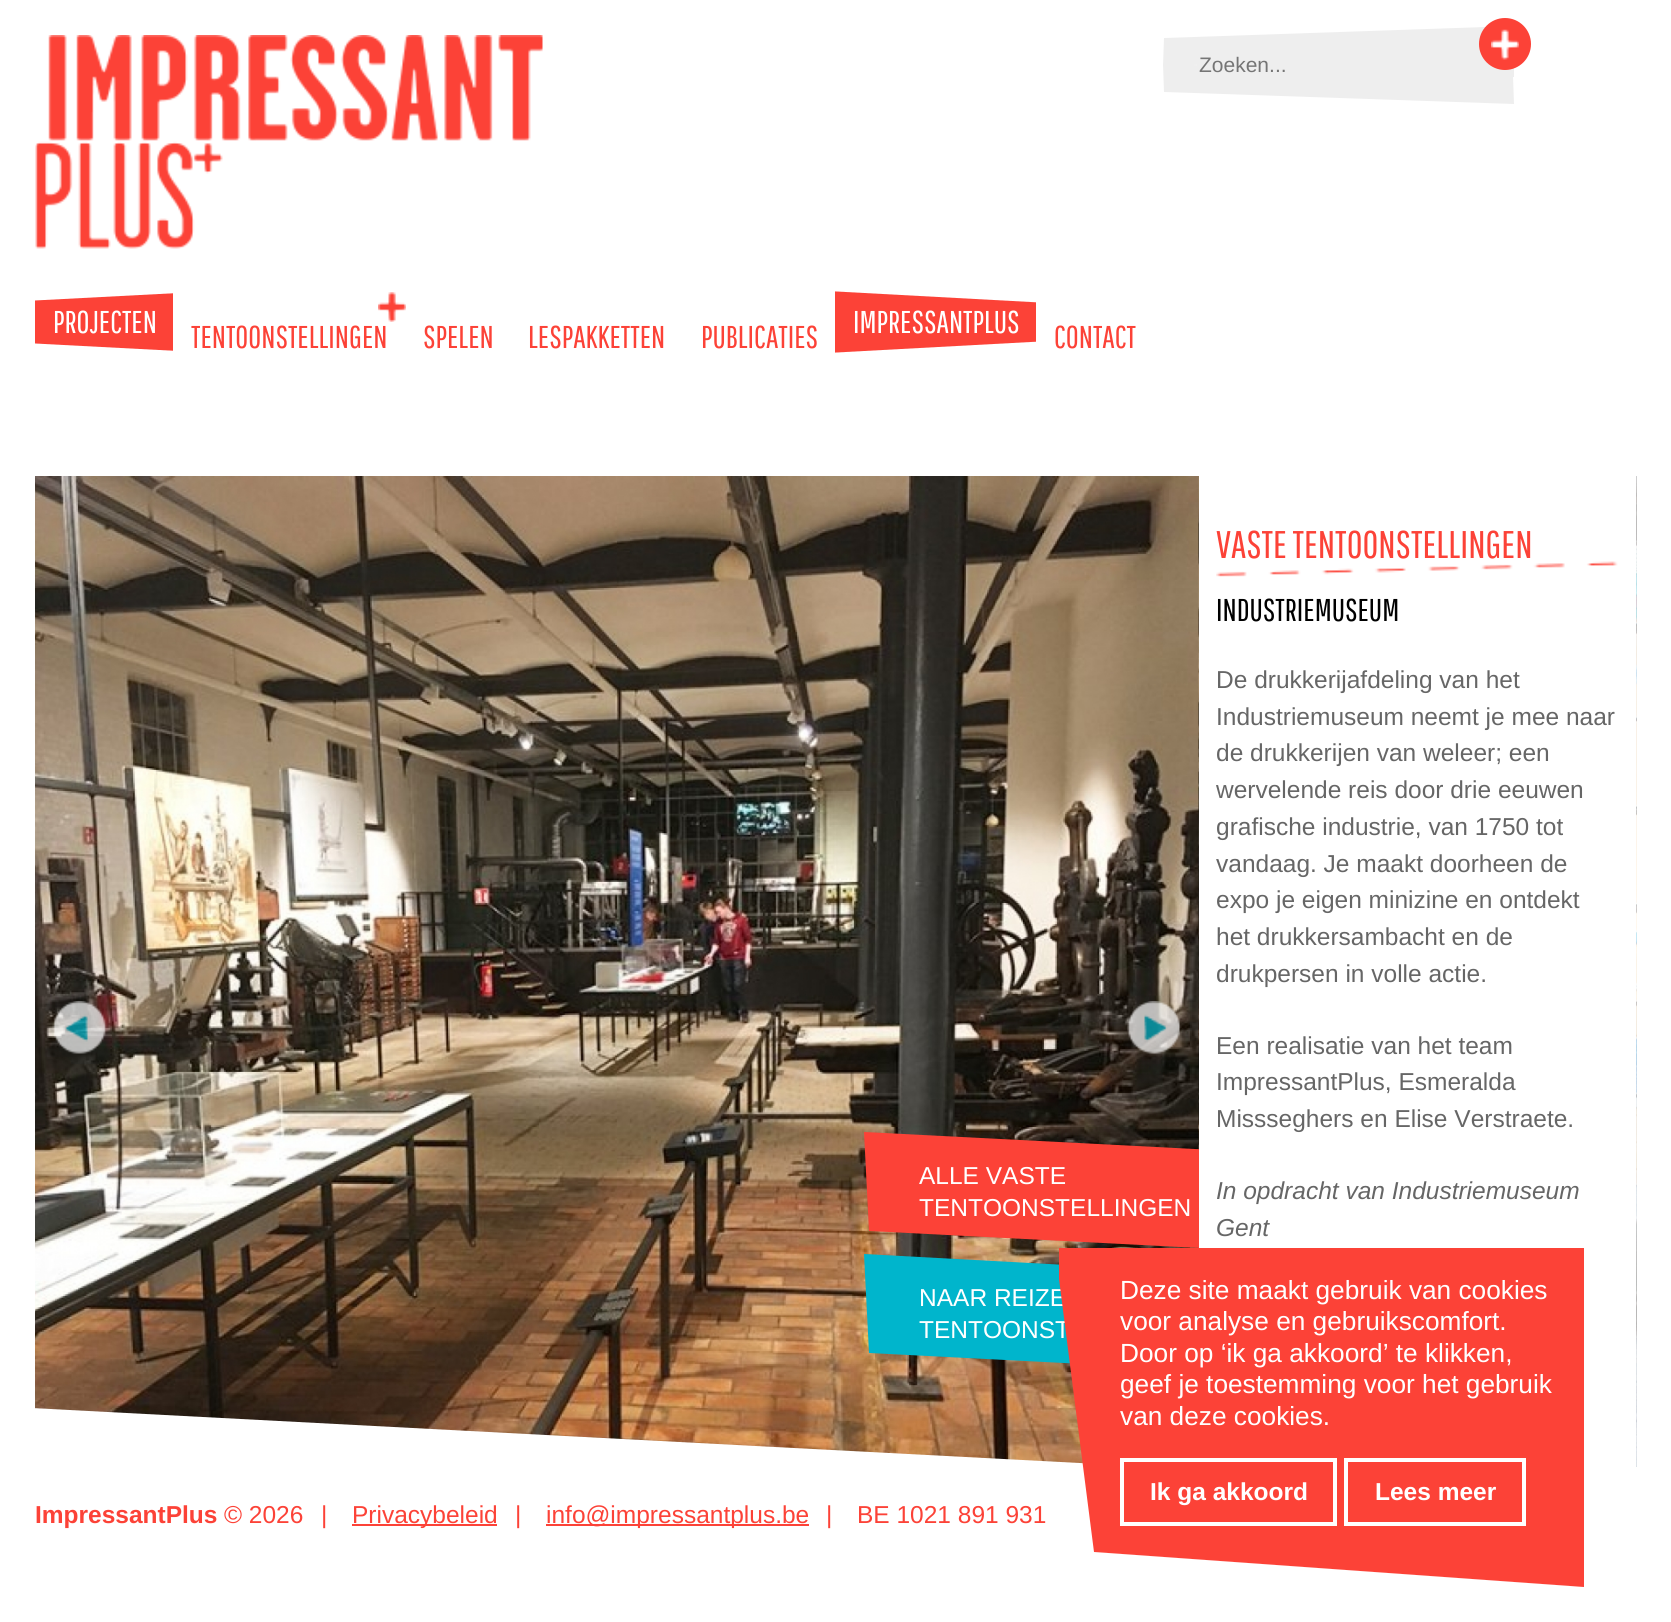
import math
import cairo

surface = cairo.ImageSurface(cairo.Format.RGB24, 1671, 1622)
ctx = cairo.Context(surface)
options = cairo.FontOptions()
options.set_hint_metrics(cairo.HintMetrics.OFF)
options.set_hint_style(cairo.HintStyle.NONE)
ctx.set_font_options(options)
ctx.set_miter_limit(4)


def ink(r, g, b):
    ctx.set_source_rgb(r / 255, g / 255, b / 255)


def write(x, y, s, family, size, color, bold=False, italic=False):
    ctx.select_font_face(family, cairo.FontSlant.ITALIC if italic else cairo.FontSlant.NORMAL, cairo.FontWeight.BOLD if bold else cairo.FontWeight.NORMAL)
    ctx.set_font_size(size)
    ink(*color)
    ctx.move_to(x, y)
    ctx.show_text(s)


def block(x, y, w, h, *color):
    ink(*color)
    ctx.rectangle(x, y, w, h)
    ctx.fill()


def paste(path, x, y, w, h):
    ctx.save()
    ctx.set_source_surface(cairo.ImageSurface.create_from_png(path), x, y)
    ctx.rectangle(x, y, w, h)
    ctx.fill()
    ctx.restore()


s1 = dict(family="Liberation Sans", size=21, color=(117, 117, 117))
s2 = dict(family="Pathway Gothic One", size=31.5, color=(255, 255, 255))
s3 = dict(family="Pathway Gothic One", size=31.5, color=(252, 66, 55))
s4 = dict(family="Pathway Gothic One", size=38.5, color=(252, 66, 55))
s5 = dict(family="Pathway Gothic One", size=31.5, color=(0, 0, 0))
s6 = dict(family="Liberation Sans", size=24.5, color=(102, 102, 102))
s7 = dict(family="Liberation Sans", size=24.5, color=(102, 102, 102), italic=True)
s8 = dict(family="Liberation Sans", size=24.5, color=(255, 255, 255))
s9 = dict(family="Liberation Sans", size=26.25, color=(255, 255, 255))
s10 = dict(family="Liberation Sans", size=24.5, color=(255, 255, 255), bold=True)
s11 = dict(family="Liberation Sans", size=24.5, color=(252, 66, 55), bold=True)
s12 = dict(family="Liberation Sans", size=24.5, color=(252, 66, 55))

ink(255, 255, 255)
ctx.paint()
paste("pic1.png", 35, 35, 508, 214)
ink(238, 238, 238)
ctx.new_path()
ctx.move_to(1164, 38)
ctx.line_to(1514, 26)
ctx.line_to(1513, 54)
ctx.line_to(1163, 66)
ctx.close_path()
ctx.fill()
ctx.new_path()
ctx.move_to(1163, 64)
ctx.line_to(1513, 76)
ctx.line_to(1514, 104)
ctx.line_to(1164, 92)
ctx.close_path()
ctx.fill()
block(1197, 53, 317, 24, 238, 238, 238)
write(1199, 72, "Zoeken...", **s1)
ink(252, 66, 55)
ctx.new_path()
ctx.arc(1505, 44, 26, 0, 2 * math.pi)
ctx.fill()
paste("pic2.png", 1491, 29, 28, 31)
block(35, 293, 138, 58, 252, 66, 55)
ink(255, 255, 255)
ctx.new_path()
ctx.move_to(27, 266)
ctx.line_to(180, 258)
ctx.line_to(178, 293)
ctx.line_to(25, 301)
ctx.close_path()
ctx.fill()
write(53, 333, "PROJECTEN", **s2)
ctx.new_path()
ctx.move_to(25, 343)
ctx.line_to(178, 351)
ctx.line_to(180, 386)
ctx.line_to(27, 378)
ctx.close_path()
ctx.fill()
block(835, 291, 201, 62, 252, 66, 55)
ink(255, 255, 255)
ctx.new_path()
ctx.move_to(825, 256)
ctx.line_to(1047, 268)
ctx.line_to(1049, 303)
ctx.line_to(827, 291)
ctx.close_path()
ctx.fill()
write(853, 333, "IMPRESSANTPLUS", **s2)
ctx.new_path()
ctx.move_to(827, 353)
ctx.line_to(1049, 341)
ctx.line_to(1047, 376)
ctx.line_to(825, 388)
ctx.close_path()
ctx.fill()
paste("pic3.png", 378, 292, 28, 30)
write(191, 348, "TENTOONSTELLINGEN", **s3)
write(423, 348, "SPELEN", **s3)
write(528, 348, "LESPAKKETTEN", **s3)
write(701, 348, "PUBLICATIES", **s3)
write(1054, 348, "CONTACT", **s3)
paste("pic9.png", 1636, 476, 1, 991)
paste("pic4.png", 1198, 476, 439, 991)
paste("pic5.png", 35, 476, 1164, 988)
paste("pic6.png", 52, 1001, 55, 53)
paste("pic7.png", 1127, 1001, 54, 53)
ctx.new_path()
ctx.move_to(864, 1132)
ctx.line_to(1214, 1150)
ctx.line_to(1219, 1249)
ctx.line_to(869, 1231)
ctx.close_path()
ctx.fill()
ink(0, 181, 204)
ctx.new_path()
ctx.move_to(864, 1254)
ctx.line_to(1214, 1273)
ctx.line_to(1219, 1371)
ctx.line_to(869, 1353)
ctx.close_path()
ctx.fill()
block(1199, 476, 437, 991, 255, 255, 255)
paste("pic8.png", 1216, 561, 402, 16)
write(1216, 558, "VASTE TENTOONSTELLINGEN", **s4)
write(1216, 621, "INDUSTRIEMUSEUM", **s5)
write(1216, 688, "De drukkerijafdeling van het", **s6)
write(1216, 725, "Industriemuseum neemt je mee naar", **s6)
write(1216, 761, "de drukkerijen van weleer; een", **s6)
write(1216, 798, "wervelende reis door drie eeuwen", **s6)
write(1216, 835, "grafische industrie, van 1750 tot", **s6)
write(1216, 872, "vandaag. Je maakt doorheen de", **s6)
write(1216, 908, "expo je eigen minizine en ontdekt", **s6)
write(1216, 945, "het drukkersambacht en de", **s6)
write(1216, 982, "drukpersen in volle actie.", **s6)
write(1216, 1054, "Een realisatie van het team", **s6)
write(1216, 1090, "ImpressantPlus, Esmeralda", **s6)
write(1216, 1127, "Missseghers en Elise Verstraete.", **s6)
write(1216, 1199, "In opdracht van Industriemuseum", **s7)
write(1216, 1236, "Gent", **s7)
write(919, 1184, "ALLE VASTE", **s8)
write(919, 1216, "TENTOONSTELLINGEN", **s8)
write(919, 1306, "NAAR REIZE", **s8)
write(919, 1338, "TENTOONST", **s8)
ctx.save()
ctx.rectangle(0, 0, 1671, 1561)
ctx.clip()
ctx.new_path()
ctx.move_to(12, 1407)
ctx.line_to(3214, 1575)
ctx.line_to(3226, 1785)
ctx.line_to(23, 1617)
ctx.close_path()
ctx.fill()
ctx.restore()
block(1094, 1248, 490, 304, 252, 66, 55)
ctx.new_path()
ctx.move_to(1094, 1248)
ctx.line_to(1094, 1552)
ctx.line_to(1059, 1279)
ctx.line_to(1059, 1248)
ctx.close_path()
ctx.fill()
write(1120, 1299, "Deze site maakt gebruik van cookies", **s9)
write(1120, 1330, "voor analyse en gebruikscomfort.", **s9)
write(1120, 1362, "Door op ‘ik ga akkoord’ te klikken,", **s9)
write(1120, 1393, "geef je toestemming voor het gebruik", **s9)
write(1120, 1425, "van deze cookies.", **s9)
ctx.rectangle(1122, 1460, 213, 64)
ctx.set_line_width(4)
ctx.stroke()
write(1150, 1500, "Ik ga akkoord", **s10)
ctx.rectangle(1346, 1460, 178, 64)
ctx.stroke()
write(1375, 1500, "Lees meer", **s10)
ink(252, 66, 55)
ctx.new_path()
ctx.move_to(1584, 1552)
ctx.line_to(1584, 1587)
ctx.line_to(1094, 1552)
ctx.close_path()
ctx.fill()
write(35, 1523, "ImpressantPlus", **s11)
write(224, 1523, "© 2026", **s12)
write(321, 1523, "|", **s12)
block(352, 1524, 145, 2, 252, 66, 55)
write(352, 1523, "Privacybeleid", **s12)
write(515, 1523, "|", **s12)
block(546, 1524, 263, 2, 252, 66, 55)
write(546, 1523, "info@impressantplus.be", **s12)
write(826, 1523, "|", **s12)
write(857, 1523, "BE 1021 891 931", **s12)
surface.write_to_png("screenshot.png")
